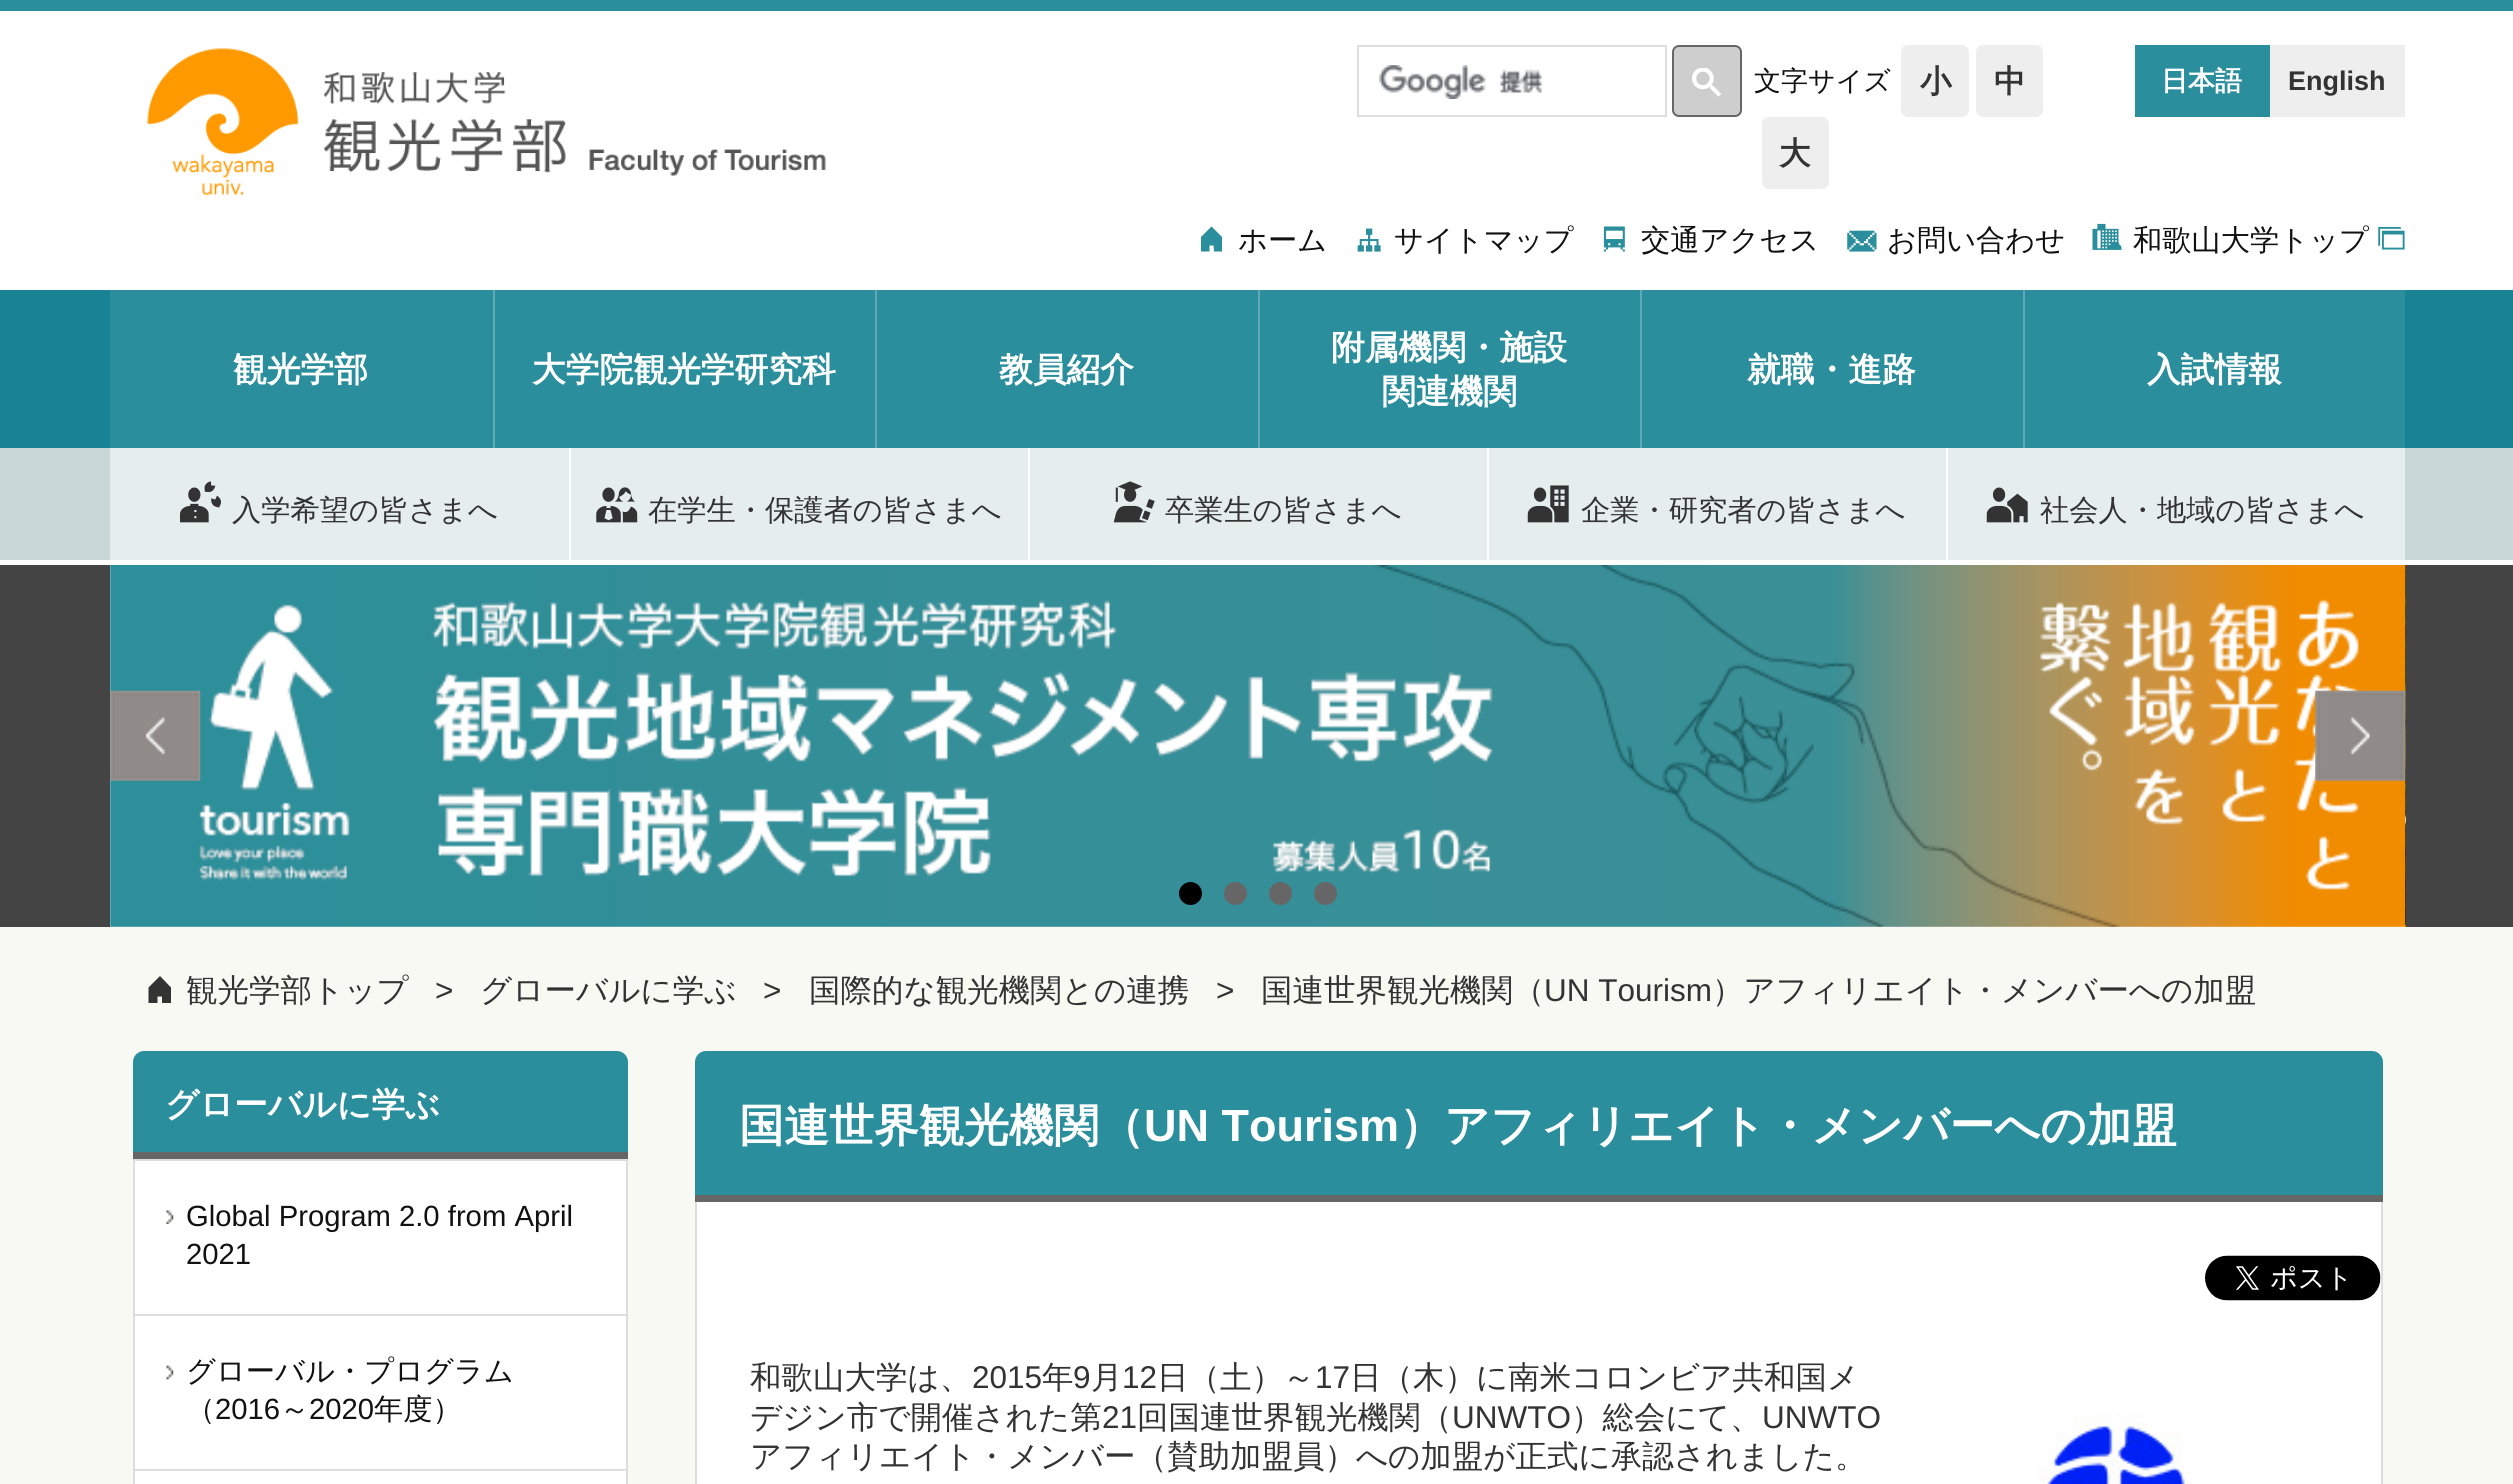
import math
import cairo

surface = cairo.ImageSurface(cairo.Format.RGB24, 2513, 1484)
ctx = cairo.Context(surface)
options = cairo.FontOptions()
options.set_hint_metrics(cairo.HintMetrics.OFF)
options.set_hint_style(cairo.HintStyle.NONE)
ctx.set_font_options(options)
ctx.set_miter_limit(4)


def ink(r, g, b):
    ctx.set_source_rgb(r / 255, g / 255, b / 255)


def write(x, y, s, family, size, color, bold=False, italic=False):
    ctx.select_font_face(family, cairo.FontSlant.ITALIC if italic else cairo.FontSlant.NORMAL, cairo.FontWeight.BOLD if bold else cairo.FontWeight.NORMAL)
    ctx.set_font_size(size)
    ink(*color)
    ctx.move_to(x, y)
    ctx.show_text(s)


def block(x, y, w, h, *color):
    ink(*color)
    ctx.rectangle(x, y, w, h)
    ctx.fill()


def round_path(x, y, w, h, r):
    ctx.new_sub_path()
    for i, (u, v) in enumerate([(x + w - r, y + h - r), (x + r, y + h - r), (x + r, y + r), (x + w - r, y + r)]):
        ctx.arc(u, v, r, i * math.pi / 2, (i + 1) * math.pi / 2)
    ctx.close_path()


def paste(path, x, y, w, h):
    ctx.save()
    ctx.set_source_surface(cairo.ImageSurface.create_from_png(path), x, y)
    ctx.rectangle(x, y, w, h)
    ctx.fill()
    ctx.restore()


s1 = dict(family="WenQuanYi Zen Hei", size=31.5, color=(51, 51, 51), bold=True)
s2 = dict(family="WenQuanYi Zen Hei Medium", size=27, color=(17, 17, 17))
s3 = dict(family="WenQuanYi Zen Hei", size=27, color=(255, 255, 255), bold=True)
s4 = dict(family="Liberation Sans", size=27, color=(51, 51, 51), bold=True)
s5 = dict(family="WenQuanYi Zen Hei Medium", size=29.25, color=(17, 17, 17))
s6 = dict(family="WenQuanYi Zen Hei", size=33.75, color=(255, 255, 255), bold=True)
s7 = dict(family="WenQuanYi Zen Hei Medium", size=29.25, color=(51, 51, 51))
s8 = dict(family="WenQuanYi Zen Hei Medium", size=31.5, color=(51, 51, 51))
s9 = dict(family="Liberation Sans", size=31.5, color=(51, 51, 51))
s10 = dict(family="Liberation Sans", size=29.25, color=(17, 17, 17))
s11 = dict(family="WenQuanYi Zen Hei", size=45, color=(255, 255, 255), bold=True)
s12 = dict(family="Liberation Sans", size=45, color=(255, 255, 255), bold=True)

ink(255, 255, 255)
ctx.paint()
block(0, 0, 2513, 11, 43, 142, 156)
paste("pic1.png", 147, 48, 679, 147)
ctx.rectangle(1358, 46, 308, 70)
ink(221, 221, 221)
ctx.stroke()
paste("pic2.png", 1379, 65, 165, 34)
ink(206, 206, 206)
round_path(1673, 46, 68, 70, 6)
ctx.fill_preserve()
ink(102, 102, 102)
ctx.stroke()
paste("pic3.png", 1692, 68, 29, 29)
ink(238, 238, 238)
round_path(1901, 45, 68, 72, 7)
ctx.fill()
write(1920, 92, "小", **s1)
ink(238, 238, 238)
round_path(1976, 45, 67, 72, 7)
ctx.fill()
write(1994, 92, "中", **s1)
ink(238, 238, 238)
round_path(1762, 117, 67, 72, 7)
ctx.fill()
write(1779, 164, "大", **s1)
write(1754, 90, "文字サイズ", **s2)
block(2135, 45, 135, 72, 43, 142, 156)
write(2161, 90, "日本語", **s3)
block(2270, 45, 135, 72, 238, 238, 238)
write(2288, 90, "English", **s4)
ink(43, 142, 156)
ctx.new_path()
ctx.move_to(1211.5, 226.5)
ctx.line_to(1201, 237)
ctx.line_to(1201, 251.5)
ctx.line_to(1209.5, 251.5)
ctx.line_to(1209.5, 245.5)
ctx.line_to(1213.5, 245.5)
ctx.line_to(1214, 251.5)
ctx.line_to(1222, 251.5)
ctx.line_to(1222, 237)
ctx.close_path()
ctx.fill()
write(1238, 250, "ホーム", **s5)
paste("pic4.png", 1357, 228, 24, 24)
write(1394, 250, "サイトマップ", **s5)
paste("pic5.png", 1603, 226, 22, 26)
write(1641, 250, "交通アクセス", **s5)
paste("pic6.png", 1847, 230, 30, 22)
write(1887, 250, "お問い合わせ", **s5)
paste("pic7.png", 2092, 223, 30, 27)
write(2133, 250, "和歌山大学トップ", **s5)
paste("pic8.png", 2378, 226, 27, 24)
block(0, 290, 2513, 158, 25, 130, 148)
block(110, 290, 383, 158, 43, 142, 156)
write(233, 381, "観光学部", **s6)
block(495, 290, 380, 158, 43, 142, 156)
block(493, 290, 2, 158, 96, 170, 181)
write(532, 381, "大学院観光学研究科", **s6)
block(877, 290, 381, 158, 43, 142, 156)
block(875, 290, 2, 158, 96, 170, 181)
write(999, 381, "教員紹介", **s6)
block(1260, 290, 380, 158, 43, 142, 156)
block(1258, 290, 2, 158, 96, 170, 181)
write(1331, 359, "附属機関・施設", **s6)
write(1382, 403, "関連機関", **s6)
block(1642, 290, 381, 158, 43, 142, 156)
block(1640, 290, 2, 158, 96, 170, 181)
write(1747, 381, "就職・進路", **s6)
block(2025, 290, 380, 158, 43, 142, 156)
block(2023, 290, 2, 158, 96, 170, 181)
write(2147, 381, "入試情報", **s6)
block(0, 448, 2513, 112, 199, 214, 215)
block(110, 448, 459, 112, 229, 237, 237)
paste("pic9.png", 180, 481, 41, 42)
write(232, 520, "入学希望の皆さまへ", **s7)
block(571, 448, 457, 112, 229, 237, 237)
block(569, 448, 2, 112, 255, 255, 255)
paste("pic10.png", 596, 487, 42, 36)
write(648, 520, "在学生・保護者の皆さまへ", **s7)
block(1030, 448, 457, 112, 229, 237, 237)
block(1028, 448, 2, 112, 255, 255, 255)
paste("pic11.png", 1113, 481, 42, 42)
write(1165, 520, "卒業生の皆さまへ", **s7)
block(1489, 448, 457, 112, 229, 237, 237)
block(1487, 448, 2, 112, 255, 255, 255)
paste("pic12.png", 1527, 485, 42, 38)
write(1581, 520, "企業・研究者の皆さまへ", **s7)
block(1948, 448, 457, 112, 229, 237, 237)
block(1946, 448, 2, 112, 255, 255, 255)
paste("pic13.png", 1986, 487, 42, 36)
write(2040, 520, "社会人・地域の皆さまへ", **s7)
block(0, 565, 2513, 362, 68, 68, 68)
block(110, 565, 2295, 362, 255, 255, 255)
paste("pic14.png", 110, 565, 2296, 362)
paste("pic15.png", 2405, 565, 1, 360)
paste("pic16.png", 110, 690, 91, 91)
paste("pic17.png", 2315, 690, 91, 91)
ink(0, 0, 0)
ctx.arc(1190.5, 893.5, 11.5, 0, 2 * math.pi)
ctx.fill()
ink(102, 102, 102)
ctx.arc(1235.5, 893.5, 11.5, 0, 2 * math.pi)
ctx.fill()
ctx.arc(1280.5, 893.5, 11.5, 0, 2 * math.pi)
ctx.fill()
ctx.arc(1325.5, 893.5, 11.5, 0, 2 * math.pi)
ctx.fill()
block(0, 927, 2513, 557, 249, 249, 244)
write(186, 1001, "観光学部トップ", **s8)
ctx.new_path()
ctx.move_to(160, 976)
ctx.line_to(148.5, 987.5)
ctx.line_to(148.5, 1003)
ctx.line_to(157.5, 1003)
ctx.line_to(157.5, 996.5)
ctx.line_to(162, 996.5)
ctx.line_to(162, 1003)
ctx.line_to(171, 1003)
ctx.line_to(171, 987.5)
ctx.close_path()
ctx.fill()
write(435, 1001, ">", **s9)
write(480, 1001, "グローバルに学ぶ", **s8)
write(763, 1001, ">", **s9)
write(809, 1001, "国際的な観光機関との連携", **s8)
write(1216, 1001, ">", **s9)
write(1261, 1001, "国連世界観光機関（", **s8)
write(1544, 1001, "UN Tourism", **s9)
write(1712, 1001, "）アフィリエイト・メンバーへの加盟", **s8)
ink(43, 142, 156)
ctx.new_path()
ctx.move_to(144, 1051)
ctx.line_to(617, 1051)
ctx.curve_to(623, 1051, 628, 1056, 628, 1062)
ctx.line_to(628, 1159)
ctx.line_to(133, 1159)
ctx.line_to(133, 1062)
ctx.curve_to(133, 1056, 138, 1051, 144, 1051)
ctx.close_path()
ctx.fill()
block(133, 1152, 495, 7, 102, 102, 102)
write(165, 1116, "グローバルに学ぶ", **s6)
ctx.rectangle(134, 1160, 493, 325)
ctx.fill_preserve()
ink(221, 221, 221)
ctx.stroke()
paste("pic18.png", 166, 1210, 8, 14)
write(186, 1226, "Global Program 2.0 from April", **s10)
write(186, 1264, "2021", **s10)
paste("pic19.png", 166, 1365, 8, 15)
block(135, 1314, 491, 2, 221, 221, 221)
write(186, 1381, "グローバル・プログラム", **s5)
write(186, 1419, "（", **s5)
write(215, 1419, "2016", **s10)
write(280, 1419, "～", **s5)
write(309, 1419, "2020", **s10)
write(374, 1419, "年度）", **s5)
block(135, 1469, 491, 2, 221, 221, 221)
ink(43, 142, 156)
ctx.new_path()
ctx.move_to(706, 1051)
ctx.line_to(2372, 1051)
ctx.curve_to(2378, 1051, 2383, 1056, 2383, 1062)
ctx.line_to(2383, 1202)
ctx.line_to(695, 1202)
ctx.line_to(695, 1062)
ctx.curve_to(695, 1056, 700, 1051, 706, 1051)
ctx.close_path()
ctx.fill()
block(695, 1195, 1688, 7, 102, 102, 102)
write(739, 1141, "国連世界観光機関（", **s11)
write(1144, 1141, "UN Tourism", **s12)
write(1399, 1141, "）アフィリエイト・メンバーへの加盟", **s11)
block(697, 1202, 1684, 282, 255, 255, 255)
block(2381, 1202, 2, 282, 221, 221, 221)
block(695, 1202, 2, 282, 221, 221, 221)
paste("pic20.png", 2205, 1255, 176, 46)
write(750, 1388, "和歌山大学は、", **s8)
write(972, 1388, "2015", **s9)
write(1042, 1388, "年", **s8)
write(1073, 1388, "9", **s9)
write(1091, 1388, "月", **s8)
write(1122, 1388, "12", **s9)
write(1157, 1388, "日（土）～", **s8)
write(1315, 1388, "17", **s9)
write(1350, 1388, "日（木）に南米コロンビア共和国メ", **s8)
write(750, 1428, "デジン市で開催された第", **s8)
write(1102, 1428, "21", **s9)
write(1137, 1428, "回国連世界観光機関（", **s8)
write(1452, 1428, "UNWTO", **s9)
write(1571, 1428, "）総会にて、", **s8)
write(1762, 1428, "UNWTO", **s9)
write(750, 1467, "アフィリエイト・メンバー（賛助加盟員）への加盟が正式に承認されました。", **s8)
paste("pic21.png", 2038, 1413, 159, 71)
surface.write_to_png("screenshot.png")
